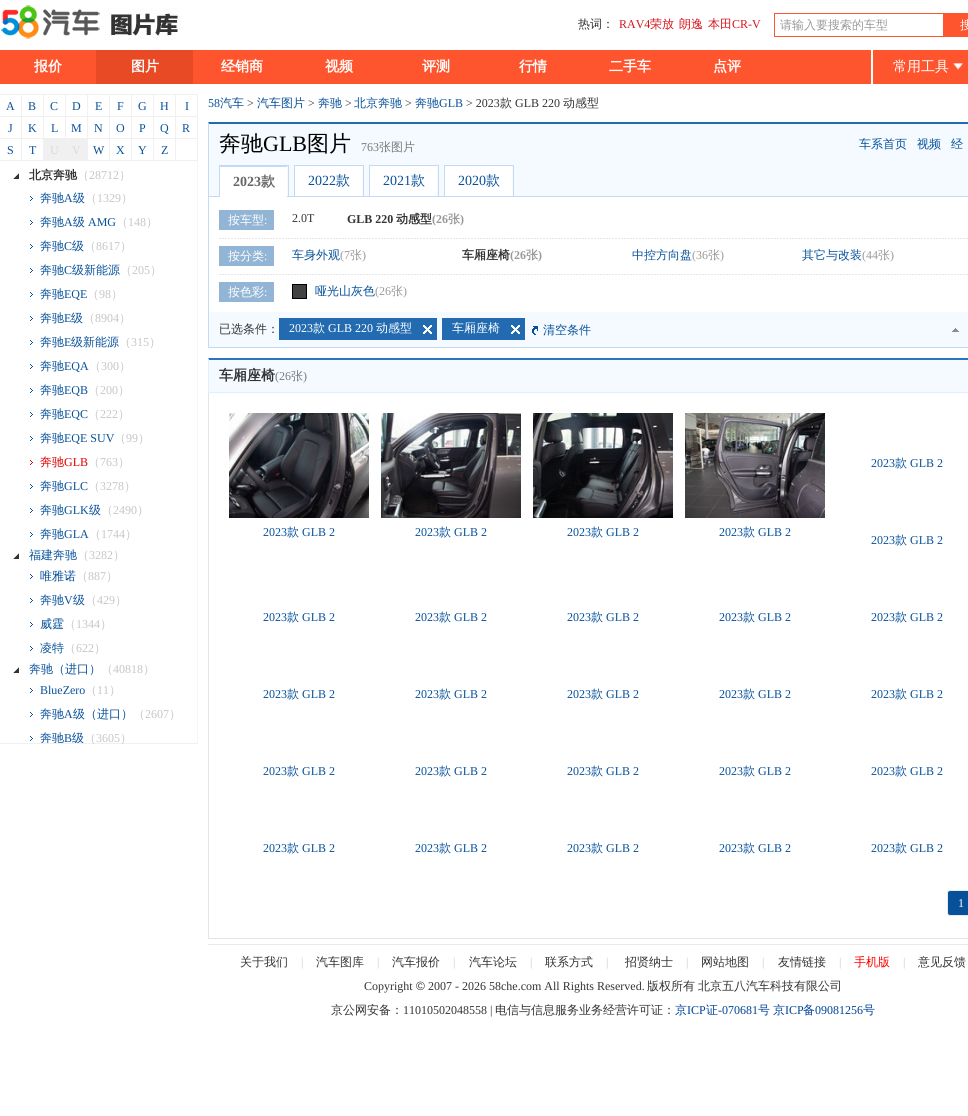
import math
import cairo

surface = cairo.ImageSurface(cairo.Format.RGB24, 968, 1116)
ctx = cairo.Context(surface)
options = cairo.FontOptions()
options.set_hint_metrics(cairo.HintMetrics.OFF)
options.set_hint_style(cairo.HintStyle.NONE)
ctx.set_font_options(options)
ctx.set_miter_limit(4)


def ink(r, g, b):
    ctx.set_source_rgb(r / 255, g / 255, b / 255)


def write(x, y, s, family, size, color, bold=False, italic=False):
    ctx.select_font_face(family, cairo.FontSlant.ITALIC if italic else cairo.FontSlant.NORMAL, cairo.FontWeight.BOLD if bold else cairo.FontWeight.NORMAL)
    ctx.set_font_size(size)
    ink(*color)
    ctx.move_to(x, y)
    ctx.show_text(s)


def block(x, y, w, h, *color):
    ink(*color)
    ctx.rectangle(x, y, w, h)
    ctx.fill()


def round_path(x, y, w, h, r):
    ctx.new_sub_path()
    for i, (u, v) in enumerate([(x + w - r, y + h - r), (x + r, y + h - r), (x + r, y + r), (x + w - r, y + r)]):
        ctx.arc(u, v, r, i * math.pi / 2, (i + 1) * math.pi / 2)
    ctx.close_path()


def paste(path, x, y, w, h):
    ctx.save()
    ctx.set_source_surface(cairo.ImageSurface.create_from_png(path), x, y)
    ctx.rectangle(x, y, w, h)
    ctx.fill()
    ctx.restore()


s1 = dict(family="WenQuanYi Zen Hei Medium", size=12, color=(51, 51, 51))
s2 = dict(family="Liberation Serif", size=12, color=(215, 20, 27))
s3 = dict(family="WenQuanYi Zen Hei Medium", size=12, color=(215, 20, 27))
s4 = dict(family="WenQuanYi Zen Hei Medium", size=12, color=(153, 153, 153))
s5 = dict(family="WenQuanYi Zen Hei Medium", size=12, color=(255, 255, 255))
s6 = dict(family="WenQuanYi Zen Hei", size=14, color=(255, 255, 255), bold=True)
s7 = dict(family="WenQuanYi Zen Hei Medium", size=14, color=(255, 255, 255))
s8 = dict(family="Liberation Serif", size=12, color=(7, 81, 154))
s9 = dict(family="Liberation Serif", size=12, color=(217, 217, 217))
s10 = dict(family="WenQuanYi Zen Hei", size=12, color=(51, 51, 51), bold=True)
s11 = dict(family="WenQuanYi Zen Hei Medium", size=12, color=(198, 198, 198))
s12 = dict(family="Liberation Serif", size=12, color=(198, 198, 198))
s13 = dict(family="WenQuanYi Zen Hei Medium", size=12, color=(7, 81, 154))
s14 = dict(family="WenQuanYi Zen Hei Medium", size=12, color=(224, 0, 0))
s15 = dict(family="Liberation Serif", size=12, color=(224, 0, 0))
s16 = dict(family="Liberation Serif", size=12, color=(51, 51, 51))
s17 = dict(family="WenQuanYi Zen Hei Medium", size=22, color=(0, 0, 0))
s18 = dict(family="Liberation Serif", size=22, color=(0, 0, 0))
s19 = dict(family="Liberation Serif", size=12, color=(121, 121, 121))
s20 = dict(family="WenQuanYi Zen Hei Medium", size=12, color=(121, 121, 121))
s21 = dict(family="Liberation Serif", size=14, color=(102, 102, 102), bold=True)
s22 = dict(family="WenQuanYi Zen Hei", size=14, color=(102, 102, 102), bold=True)
s23 = dict(family="Liberation Serif", size=14, color=(7, 81, 154))
s24 = dict(family="WenQuanYi Zen Hei Medium", size=14, color=(7, 81, 154))
s25 = dict(family="Liberation Serif", size=12, color=(255, 255, 255))
s26 = dict(family="Liberation Serif", size=12, color=(51, 51, 51), bold=True)
s27 = dict(family="Liberation Serif", size=12, color=(153, 153, 153), bold=True)
s28 = dict(family="WenQuanYi Zen Hei", size=12, color=(153, 153, 153), bold=True)
s29 = dict(family="Liberation Serif", size=12, color=(153, 153, 153))
s30 = dict(family="WenQuanYi Zen Hei", size=14, color=(51, 51, 51), bold=True)
s31 = dict(family="Liberation Serif", size=12, color=(204, 204, 204))
s32 = dict(family="WenQuanYi Zen Hei Medium", size=12, color=(255, 0, 0))
s33 = dict(family="Liberation Sans", size=12, color=(51, 51, 51))
s34 = dict(family="WenQuanYi Zen Hei Medium", size=12, color=(0, 67, 152))
s35 = dict(family="Liberation Serif", size=12, color=(0, 67, 152))

ink(255, 255, 255)
ctx.paint()
paste("pic1.png", 1, 5, 99, 34)
paste("pic2.png", 104, 8, 78, 32)
write(578, 28, "热词：", **s1)
write(619, 28, "RAV4", **s2)
write(650, 28, "荣放", **s3)
write(679, 28, "朗逸", **s3)
write(708, 28, "本田", **s3)
write(732, 28, "CR-V", **s2)
ctx.rectangle(774.5, 13.5, 169, 23)
ink(255, 85, 46)
ctx.set_line_width(1)
ctx.stroke()
write(780, 29, "请输入要搜索的车型", **s4)
block(944, 13, 24, 24, 255, 85, 46)
write(960, 29, "搜", **s5)
block(0, 50, 871, 34, 255, 85, 46)
write(34, 71, "报价", **s6)
block(96, 50, 97, 34, 232, 74, 38)
write(131, 71, "图片", **s6)
write(221, 71, "经销商", **s6)
write(325, 71, "视频", **s6)
write(422, 71, "评测", **s6)
write(519, 71, "行情", **s6)
write(609, 71, "二手车", **s6)
write(713, 71, "点评", **s6)
block(873, 50, 95, 34, 255, 85, 46)
write(893, 71, "常用工具", **s7)
paste("pic3.png", 953, 63, 10, 7)
ctx.rectangle(-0.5, 94.5, 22, 22)
ink(240, 240, 240)
ctx.stroke()
write(6, 110, "A", **s8)
ctx.rectangle(21.5, 94.5, 22, 22)
ink(240, 240, 240)
ctx.stroke()
write(28, 110, "B", **s8)
ctx.rectangle(43.5, 94.5, 22, 22)
ink(240, 240, 240)
ctx.stroke()
write(50, 110, "C", **s8)
ctx.rectangle(65.5, 94.5, 22, 22)
ink(240, 240, 240)
ctx.stroke()
write(72, 110, "D", **s8)
ctx.rectangle(87.5, 94.5, 22, 22)
ink(240, 240, 240)
ctx.stroke()
write(95, 110, "E", **s8)
ctx.rectangle(109.5, 94.5, 22, 22)
ink(240, 240, 240)
ctx.stroke()
write(117, 110, "F", **s8)
ctx.rectangle(131.5, 94.5, 22, 22)
ink(240, 240, 240)
ctx.stroke()
write(138, 110, "G", **s8)
ctx.rectangle(153.5, 94.5, 22, 22)
ink(240, 240, 240)
ctx.stroke()
write(160, 110, "H", **s8)
ctx.rectangle(175.5, 94.5, 22, 22)
ink(240, 240, 240)
ctx.stroke()
write(185, 110, "I", **s8)
ctx.rectangle(-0.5, 116.5, 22, 22)
ink(240, 240, 240)
ctx.stroke()
write(8, 132, "J", **s8)
ctx.rectangle(21.5, 116.5, 22, 22)
ink(240, 240, 240)
ctx.stroke()
write(28, 132, "K", **s8)
ctx.rectangle(43.5, 116.5, 22, 22)
ink(240, 240, 240)
ctx.stroke()
write(51, 132, "L", **s8)
ctx.rectangle(65.5, 116.5, 22, 22)
ink(240, 240, 240)
ctx.stroke()
write(71, 132, "M", **s8)
ctx.rectangle(87.5, 116.5, 22, 22)
ink(240, 240, 240)
ctx.stroke()
write(94, 132, "N", **s8)
ctx.rectangle(109.5, 116.5, 22, 22)
ink(240, 240, 240)
ctx.stroke()
write(116, 132, "O", **s8)
ctx.rectangle(131.5, 116.5, 22, 22)
ink(240, 240, 240)
ctx.stroke()
write(139, 132, "P", **s8)
ctx.rectangle(153.5, 116.5, 22, 22)
ink(240, 240, 240)
ctx.stroke()
write(160, 132, "Q", **s8)
ctx.rectangle(175.5, 116.5, 22, 22)
ink(240, 240, 240)
ctx.stroke()
write(182, 132, "R", **s8)
ctx.rectangle(-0.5, 138.5, 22, 22)
ink(240, 240, 240)
ctx.stroke()
write(7, 154, "S", **s8)
ctx.rectangle(21.5, 138.5, 22, 22)
ink(240, 240, 240)
ctx.stroke()
write(29, 154, "T", **s8)
block(44, 139, 43, 22, 240, 240, 240)
write(50, 154, "U", **s9)
write(72, 154, "V", **s9)
ctx.rectangle(87.5, 138.5, 22, 22)
ink(240, 240, 240)
ctx.stroke()
write(93, 154, "W", **s8)
ctx.rectangle(109.5, 138.5, 22, 22)
ink(240, 240, 240)
ctx.stroke()
write(116, 154, "X", **s8)
ctx.rectangle(131.5, 138.5, 22, 22)
ink(240, 240, 240)
ctx.stroke()
write(138, 154, "Y", **s8)
ctx.rectangle(153.5, 138.5, 22, 22)
ink(240, 240, 240)
ctx.stroke()
write(161, 154, "Z", **s8)
ctx.rectangle(175.5, 138.5, 22, 22)
ink(240, 240, 240)
ctx.stroke()
block(197, 161, 1, 582, 247, 247, 247)
block(0, 743, 198, 1, 240, 240, 240)
ink(51, 51, 51)
ctx.new_path()
ctx.move_to(19, 179)
ctx.line_to(13, 179)
ctx.line_to(19, 173)
ctx.close_path()
ctx.fill()
ink(255, 255, 255)
ctx.new_path()
ctx.move_to(13, 179)
ctx.line_to(13, 172)
ctx.line_to(19, 173)
ctx.close_path()
ctx.fill()
write(29, 179, "北京奔驰", **s10)
write(77, 179, "（", **s11)
write(89, 179, "28712", **s12)
write(119, 179, "）", **s11)
paste("pic4.png", 30, 196, 3, 5)
write(40, 202, "奔驰", **s13)
write(64, 202, "A", **s8)
write(73, 202, "级", **s13)
write(85, 202, "（", **s11)
write(97, 202, "1329", **s12)
write(121, 202, "）", **s11)
paste("pic4.png", 30, 220, 3, 5)
write(40, 226, "奔驰", **s13)
write(64, 226, "A", **s8)
write(73, 226, "级", **s13)
write(88, 226, "AMG", **s8)
write(116, 226, "（", **s11)
write(128, 226, "148", **s12)
write(146, 226, "）", **s11)
paste("pic4.png", 30, 244, 3, 5)
write(40, 250, "奔驰", **s13)
write(64, 250, "C", **s8)
write(72, 250, "级", **s13)
write(84, 250, "（", **s11)
write(96, 250, "8617", **s12)
write(120, 250, "）", **s11)
paste("pic4.png", 30, 268, 3, 5)
write(40, 274, "奔驰", **s13)
write(64, 274, "C", **s8)
write(72, 274, "级新能源", **s13)
write(120, 274, "（", **s11)
write(132, 274, "205", **s12)
write(150, 274, "）", **s11)
paste("pic4.png", 30, 292, 3, 5)
write(40, 298, "奔驰", **s13)
write(64, 298, "EQE", **s8)
write(87, 298, "（", **s11)
write(99, 298, "98", **s12)
write(111, 298, "）", **s11)
paste("pic4.png", 30, 316, 3, 5)
write(40, 322, "奔驰", **s13)
write(64, 322, "E", **s8)
write(71, 322, "级", **s13)
write(83, 322, "（", **s11)
write(95, 322, "8904", **s12)
write(119, 322, "）", **s11)
paste("pic4.png", 30, 340, 3, 5)
write(40, 346, "奔驰", **s13)
write(64, 346, "E", **s8)
write(71, 346, "级新能源", **s13)
write(119, 346, "（", **s11)
write(131, 346, "315", **s12)
write(149, 346, "）", **s11)
paste("pic4.png", 30, 364, 3, 5)
write(40, 370, "奔驰", **s13)
write(64, 370, "EQA", **s8)
write(89, 370, "（", **s11)
write(101, 370, "300", **s12)
write(119, 370, "）", **s11)
paste("pic4.png", 30, 388, 3, 5)
write(40, 394, "奔驰", **s13)
write(64, 394, "EQB", **s8)
write(88, 394, "（", **s11)
write(100, 394, "200", **s12)
write(118, 394, "）", **s11)
paste("pic4.png", 30, 412, 3, 5)
write(40, 418, "奔驰", **s13)
write(64, 418, "EQC", **s8)
write(88, 418, "（", **s11)
write(100, 418, "222", **s12)
write(118, 418, "）", **s11)
paste("pic4.png", 30, 436, 3, 5)
write(40, 442, "奔驰", **s13)
write(64, 442, "EQE SUV", **s8)
write(114, 442, "（", **s11)
write(126, 442, "99", **s12)
write(138, 442, "）", **s11)
paste("pic5.png", 30, 460, 3, 5)
write(40, 466, "奔驰", **s14)
write(64, 466, "GLB", **s15)
write(88, 466, "（", **s11)
write(100, 466, "763", **s12)
write(118, 466, "）", **s11)
paste("pic4.png", 30, 484, 3, 5)
write(40, 490, "奔驰", **s13)
write(64, 490, "GLC", **s8)
write(88, 490, "（", **s11)
write(100, 490, "3278", **s12)
write(124, 490, "）", **s11)
paste("pic4.png", 30, 508, 3, 5)
write(40, 514, "奔驰", **s13)
write(64, 514, "GLK", **s8)
write(89, 514, "级", **s13)
write(101, 514, "（", **s11)
write(113, 514, "2490", **s12)
write(137, 514, "）", **s11)
paste("pic4.png", 30, 532, 3, 5)
write(40, 538, "奔驰", **s13)
write(64, 538, "GLA", **s8)
write(89, 538, "（", **s11)
write(101, 538, "1744", **s12)
write(125, 538, "）", **s11)
ink(51, 51, 51)
ctx.new_path()
ctx.move_to(19, 559)
ctx.line_to(13, 559)
ctx.line_to(19, 553)
ctx.close_path()
ctx.fill()
ink(255, 255, 255)
ctx.new_path()
ctx.move_to(13, 559)
ctx.line_to(13, 552)
ctx.line_to(19, 553)
ctx.close_path()
ctx.fill()
write(29, 559, "福建奔驰", **s13)
write(77, 559, "（", **s11)
write(89, 559, "3282", **s12)
write(113, 559, "）", **s11)
paste("pic4.png", 30, 574, 3, 5)
write(40, 580, "唯雅诺", **s13)
write(76, 580, "（", **s11)
write(88, 580, "887", **s12)
write(106, 580, "）", **s11)
paste("pic4.png", 30, 598, 3, 5)
write(40, 604, "奔驰", **s13)
write(64, 604, "V", **s8)
write(73, 604, "级", **s13)
write(85, 604, "（", **s11)
write(97, 604, "429", **s12)
write(115, 604, "）", **s11)
paste("pic4.png", 30, 622, 3, 5)
write(40, 628, "威霆", **s13)
write(64, 628, "（", **s11)
write(76, 628, "1344", **s12)
write(100, 628, "）", **s11)
paste("pic4.png", 30, 646, 3, 5)
write(40, 652, "凌特", **s13)
write(64, 652, "（", **s11)
write(76, 652, "622", **s12)
write(94, 652, "）", **s11)
ink(51, 51, 51)
ctx.new_path()
ctx.move_to(19, 673)
ctx.line_to(13, 673)
ctx.line_to(19, 667)
ctx.close_path()
ctx.fill()
ink(255, 255, 255)
ctx.new_path()
ctx.move_to(13, 673)
ctx.line_to(13, 666)
ctx.line_to(19, 667)
ctx.close_path()
ctx.fill()
write(29, 673, "奔驰（进口）", **s13)
write(101, 673, "（", **s11)
write(113, 673, "40818", **s12)
write(143, 673, "）", **s11)
paste("pic4.png", 30, 688, 3, 5)
write(40, 694, "BlueZero", **s8)
write(85, 694, "（", **s11)
write(97, 694, "11", **s12)
write(109, 694, "）", **s11)
paste("pic4.png", 30, 712, 3, 5)
write(40, 718, "奔驰", **s13)
write(64, 718, "A", **s8)
write(73, 718, "级（进口）", **s13)
write(133, 718, "（", **s11)
write(145, 718, "2607", **s12)
write(169, 718, "）", **s11)
paste("pic4.png", 30, 736, 3, 5)
ctx.save()
ctx.rectangle(0, 161, 198, 582)
ctx.clip()
write(40, 742, "奔驰", **s13)
ctx.restore()
write(64, 742, "B", **s8)
ctx.save()
ctx.rectangle(0, 161, 198, 582)
ctx.clip()
write(72, 742, "级", **s13)
ctx.restore()
write(84, 742, "（", **s11)
write(96, 742, "3605", **s12)
write(120, 742, "）", **s11)
write(208, 107, "58", **s8)
write(220, 107, "汽车", **s13)
write(247, 107, ">", **s16)
write(257, 107, "汽车图片", **s13)
write(308, 107, ">", **s16)
write(318, 107, "奔驰", **s13)
write(345, 107, ">", **s16)
write(354, 107, "北京奔驰", **s13)
write(405, 107, ">", **s16)
write(415, 107, "奔驰", **s13)
write(439, 107, "GLB", **s8)
write(466, 107, "> 2023", **s16)
write(500, 107, "款", **s1)
write(515, 107, "GLB 220", **s16)
write(563, 107, "动感型", **s1)
block(209, 124, 759, 223, 244, 250, 255)
ink(34, 107, 177)
ctx.new_path()
ctx.move_to(208, 122)
ctx.line_to(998, 122)
ctx.line_to(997, 124)
ctx.line_to(209, 124)
ctx.close_path()
ctx.fill()
block(208, 347, 760, 1, 195, 218, 242)
ctx.new_path()
ctx.move_to(208, 348)
ctx.line_to(208, 122)
ctx.line_to(209, 124)
ctx.line_to(209, 347)
ctx.close_path()
ctx.fill()
write(219, 151, "奔驰", **s17)
write(263, 151, "GLB", **s18)
write(307, 151, "图片", **s17)
write(361, 151, "763", **s19)
write(379, 151, "张图片", **s20)
write(859, 148, "车系首页", **s13)
write(917, 148, "视频", **s13)
write(951, 148, "经", **s13)
block(209, 196, 759, 1, 195, 218, 242)
block(219, 165, 70, 1, 195, 218, 242)
block(288, 165, 1, 31, 195, 218, 242)
block(219, 165, 1, 31, 195, 218, 242)
block(220, 167, 67, 30, 255, 255, 255)
block(220, 166, 67, 1, 195, 218, 242)
write(233, 186, "2023", **s21)
write(261, 186, "款", **s22)
block(294, 165, 70, 1, 195, 218, 242)
block(363, 165, 1, 31, 195, 218, 242)
block(294, 165, 1, 31, 195, 218, 242)
block(295, 166, 67, 30, 255, 255, 255)
write(308, 185, "2022", **s23)
write(336, 185, "款", **s24)
block(369, 165, 70, 1, 195, 218, 242)
block(438, 165, 1, 31, 195, 218, 242)
block(369, 165, 1, 31, 195, 218, 242)
block(370, 166, 67, 30, 255, 255, 255)
write(383, 185, "2021", **s23)
write(411, 185, "款", **s24)
block(444, 165, 70, 1, 195, 218, 242)
block(513, 165, 1, 31, 195, 218, 242)
block(444, 165, 1, 31, 195, 218, 242)
block(445, 166, 67, 30, 255, 255, 255)
write(458, 185, "2020", **s23)
write(486, 185, "款", **s24)
block(209, 197, 759, 115, 255, 255, 255)
block(219, 210, 55, 20, 147, 181, 213)
write(228, 224, "按车型", **s5)
write(264, 224, ":", **s25)
write(292, 222, "2.0T", **s16)
write(347, 223, "GLB 220", **s26)
write(396, 223, "动感型", **s10)
write(432, 223, "(26", **s27)
write(448, 223, "张", **s28)
write(460, 223, ")", **s27)
paste("pic6.png", 219, 238, 749, 1)
block(219, 246, 55, 20, 147, 181, 213)
write(228, 260, "按分类", **s5)
write(264, 260, ":", **s25)
write(292, 259, "车身外观", **s13)
write(340, 259, "(7", **s29)
write(350, 259, "张", **s4)
write(362, 259, ")", **s29)
write(462, 259, "车厢座椅", **s10)
write(510, 259, "(26", **s27)
write(526, 259, "张", **s28)
write(538, 259, ")", **s27)
write(632, 259, "中控方向盘", **s13)
write(692, 259, "(36", **s29)
write(708, 259, "张", **s4)
write(720, 259, ")", **s29)
write(802, 259, "其它与改装", **s13)
write(862, 259, "(44", **s29)
write(878, 259, "张", **s4)
write(890, 259, ")", **s29)
paste("pic6.png", 219, 274, 749, 1)
block(219, 282, 55, 20, 147, 181, 213)
write(228, 296, "按色彩", **s5)
write(264, 296, ":", **s25)
ink(66, 66, 66)
ctx.rectangle(292.5, 284.5, 14, 14)
ctx.fill_preserve()
ink(0, 0, 0)
ctx.stroke()
write(315, 295, "哑光山灰色", **s13)
write(375, 295, "(26", **s29)
write(391, 295, "张", **s4)
write(403, 295, ")", **s29)
write(219, 333, "已选条件：", **s1)
block(279, 318, 158, 22, 34, 107, 177)
write(289, 332, "2023", **s25)
write(313, 332, "款", **s5)
write(328, 332, "GLB 220", **s25)
write(376, 332, "动感型", **s5)
paste("pic7.png", 423, 325, 9, 9)
block(442, 318, 83, 22, 34, 107, 177)
write(452, 332, "车厢座椅", **s5)
paste("pic7.png", 511, 325, 9, 9)
paste("pic8.png", 532, 326, 6, 9)
write(543, 334, "清空条件", **s13)
paste("pic9.png", 952, 328, 7, 4)
block(209, 360, 759, 32, 244, 250, 255)
ink(43, 117, 189)
ctx.new_path()
ctx.move_to(208, 358)
ctx.line_to(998, 358)
ctx.line_to(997, 360)
ctx.line_to(209, 360)
ctx.close_path()
ctx.fill()
block(208, 392, 760, 1, 224, 240, 255)
ctx.new_path()
ctx.move_to(208, 393)
ctx.line_to(208, 358)
ctx.line_to(209, 360)
ctx.line_to(209, 392)
ctx.close_path()
ctx.fill()
write(219, 380, "车厢座椅", **s30)
write(275, 380, "(26", **s19)
write(291, 380, "张", **s20)
write(303, 380, ")", **s19)
block(208, 938, 760, 1, 223, 229, 234)
block(208, 393, 1, 546, 223, 229, 234)
write(871, 467, "2023", **s8)
write(895, 467, "款", **s13)
write(910, 467, "GLB 2", **s8)
paste("pic10.png", 229, 413, 140, 105)
write(263, 536, "2023", **s8)
write(287, 536, "款", **s13)
write(302, 536, "GLB 2", **s8)
paste("pic11.png", 381, 413, 140, 105)
write(415, 536, "2023", **s8)
write(439, 536, "款", **s13)
write(454, 536, "GLB 2", **s8)
paste("pic12.png", 533, 413, 140, 105)
write(567, 536, "2023", **s8)
write(591, 536, "款", **s13)
write(606, 536, "GLB 2", **s8)
paste("pic13.png", 685, 413, 140, 105)
write(719, 536, "2023", **s8)
write(743, 536, "款", **s13)
write(758, 536, "GLB 2", **s8)
write(871, 544, "2023", **s8)
write(895, 544, "款", **s13)
write(910, 544, "GLB 2", **s8)
write(263, 621, "2023", **s8)
write(287, 621, "款", **s13)
write(302, 621, "GLB 2", **s8)
write(415, 621, "2023", **s8)
write(439, 621, "款", **s13)
write(454, 621, "GLB 2", **s8)
write(567, 621, "2023", **s8)
write(591, 621, "款", **s13)
write(606, 621, "GLB 2", **s8)
write(719, 621, "2023", **s8)
write(743, 621, "款", **s13)
write(758, 621, "GLB 2", **s8)
write(871, 621, "2023", **s8)
write(895, 621, "款", **s13)
write(910, 621, "GLB 2", **s8)
write(263, 698, "2023", **s8)
write(287, 698, "款", **s13)
write(302, 698, "GLB 2", **s8)
write(415, 698, "2023", **s8)
write(439, 698, "款", **s13)
write(454, 698, "GLB 2", **s8)
write(567, 698, "2023", **s8)
write(591, 698, "款", **s13)
write(606, 698, "GLB 2", **s8)
write(719, 698, "2023", **s8)
write(743, 698, "款", **s13)
write(758, 698, "GLB 2", **s8)
write(871, 698, "2023", **s8)
write(895, 698, "款", **s13)
write(910, 698, "GLB 2", **s8)
write(263, 775, "2023", **s8)
write(287, 775, "款", **s13)
write(302, 775, "GLB 2", **s8)
write(415, 775, "2023", **s8)
write(439, 775, "款", **s13)
write(454, 775, "GLB 2", **s8)
write(567, 775, "2023", **s8)
write(591, 775, "款", **s13)
write(606, 775, "GLB 2", **s8)
write(719, 775, "2023", **s8)
write(743, 775, "款", **s13)
write(758, 775, "GLB 2", **s8)
write(871, 775, "2023", **s8)
write(895, 775, "款", **s13)
write(910, 775, "GLB 2", **s8)
write(263, 852, "2023", **s8)
write(287, 852, "款", **s13)
write(302, 852, "GLB 2", **s8)
write(415, 852, "2023", **s8)
write(439, 852, "款", **s13)
write(454, 852, "GLB 2", **s8)
write(567, 852, "2023", **s8)
write(591, 852, "款", **s13)
write(606, 852, "GLB 2", **s8)
write(719, 852, "2023", **s8)
write(743, 852, "款", **s13)
write(758, 852, "GLB 2", **s8)
write(871, 852, "2023", **s8)
write(895, 852, "款", **s13)
write(910, 852, "GLB 2", **s8)
round_path(947.5, 890.5, 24, 25, 2.5)
ctx.fill_preserve()
ink(229, 236, 244)
ctx.stroke()
write(958, 907, "1", **s25)
block(208, 944, 760, 1, 234, 234, 234)
write(240, 966, "关于我们", **s1)
write(301, 966, "|", **s31)
write(316, 966, "汽车图库", **s1)
write(377, 966, "|", **s31)
write(392, 966, "汽车报价", **s1)
write(453, 966, "|", **s31)
write(469, 966, "汽车论坛", **s1)
write(530, 966, "|", **s31)
write(545, 966, "联系方式", **s1)
write(606, 966, "|", **s31)
write(625, 966, "招贤纳士", **s1)
write(686, 966, "|", **s31)
write(701, 966, "网站地图", **s1)
write(762, 966, "|", **s31)
write(778, 966, "友情链接", **s1)
write(839, 966, "|", **s31)
write(854, 966, "手机版", **s32)
write(903, 966, "|", **s31)
write(918, 966, "意见反馈", **s1)
write(364, 990, "Copyright", **s16)
write(416, 990, "©", **s33)
write(428, 990, "2007 - 2026 58che.com All Rights Reserved.", **s16)
write(647, 990, "版权所有", **s1)
write(698, 990, "北京五八汽车科技有限公司", **s1)
write(331, 1014, "京公网安备：", **s1)
write(403, 1014, "11010502048558 |", **s16)
write(495, 1014, "电信与信息服务业务经营许可证：", **s1)
write(675, 1014, "京", **s34)
write(687, 1014, "ICP", **s35)
write(706, 1014, "证", **s34)
write(718, 1014, "-070681", **s35)
write(758, 1014, "号", **s34)
write(773, 1014, "京", **s34)
write(785, 1014, "ICP", **s35)
write(803, 1014, "备", **s34)
write(815, 1014, "09081256", **s35)
write(863, 1014, "号", **s34)
surface.write_to_png("screenshot.png")
